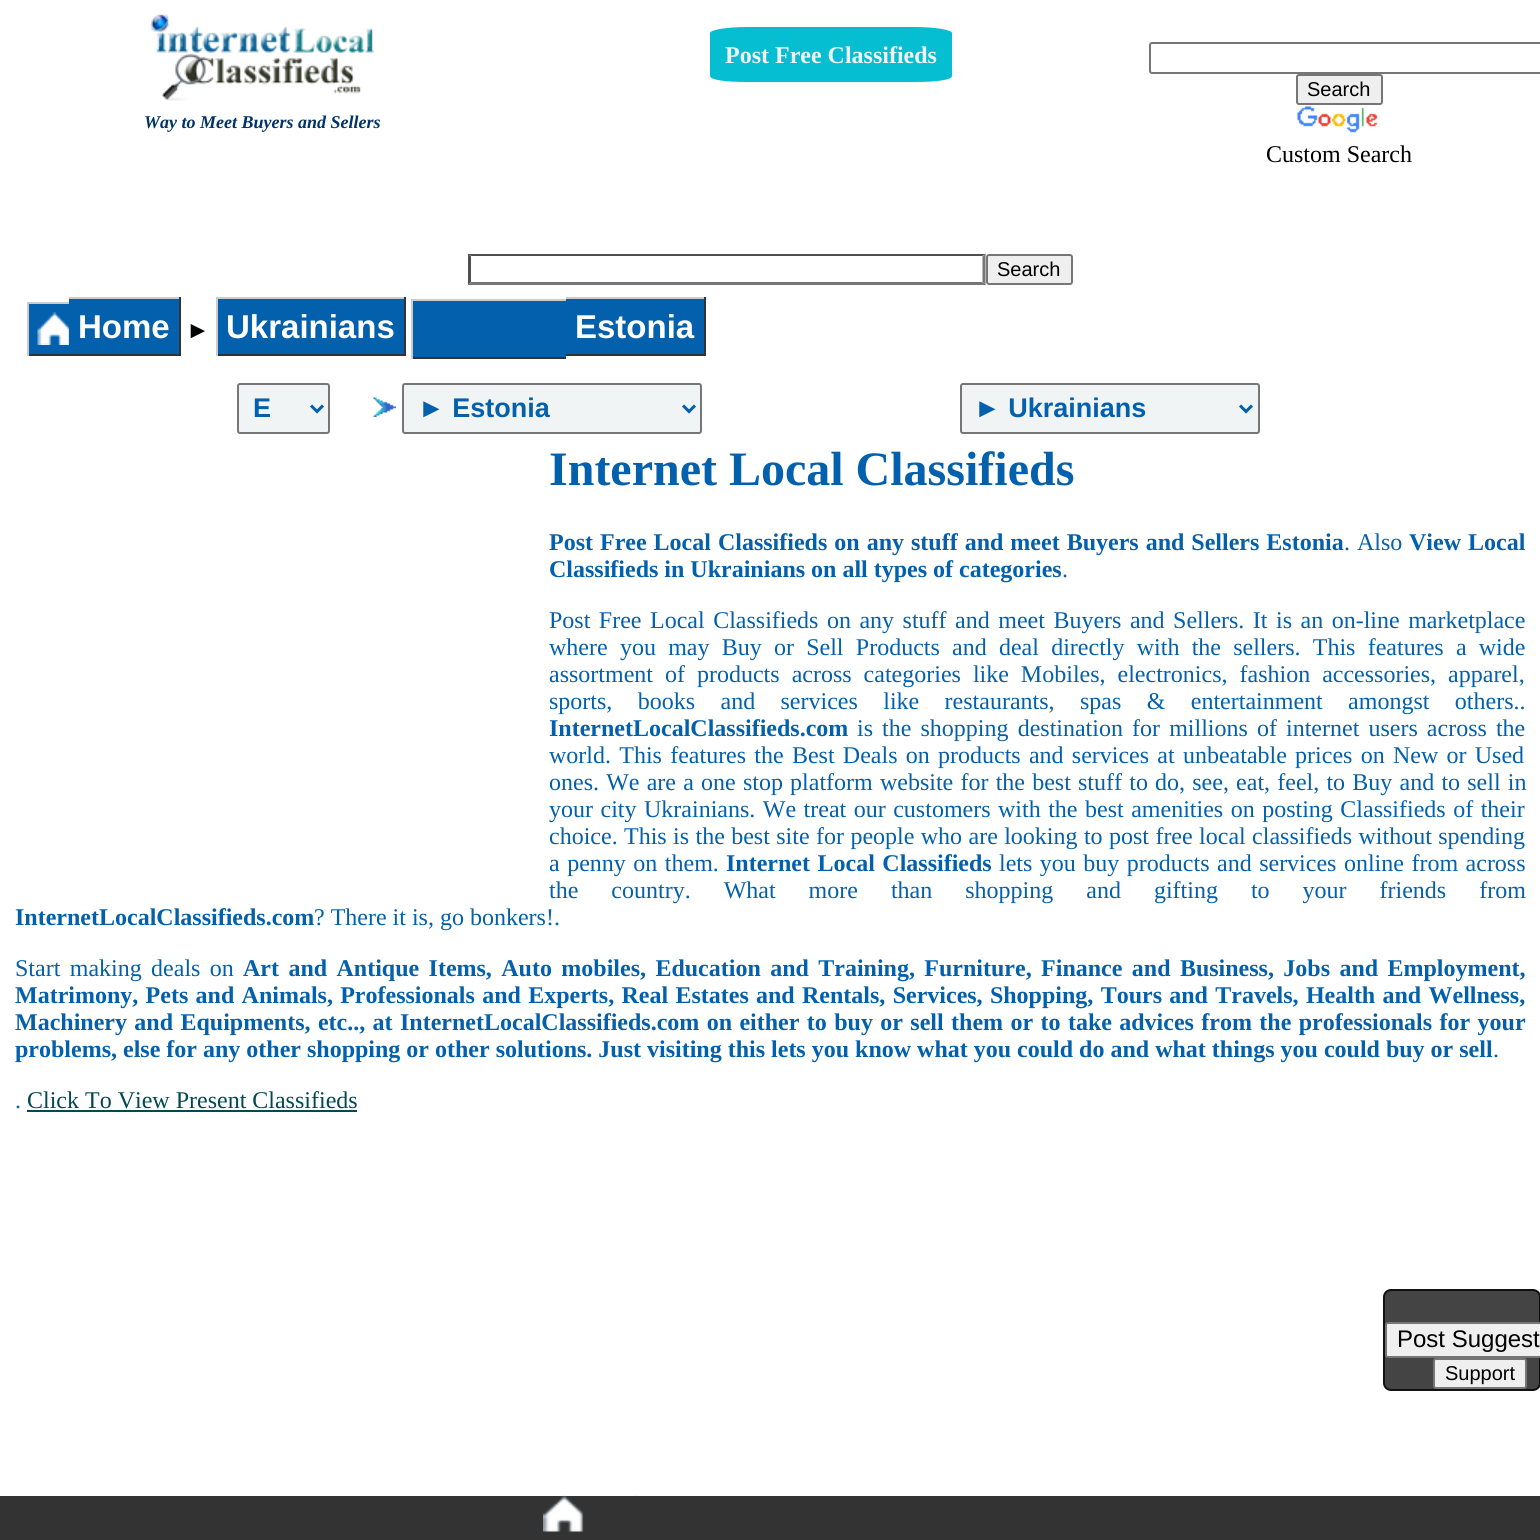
import math
import cairo

surface = cairo.ImageSurface(cairo.Format.RGB24, 1540, 1540)
ctx = cairo.Context(surface)
options = cairo.FontOptions()
options.set_hint_metrics(cairo.HintMetrics.OFF)
options.set_hint_style(cairo.HintStyle.NONE)
ctx.set_font_options(options)
ctx.set_miter_limit(4)


def ink(r, g, b):
    ctx.set_source_rgb(r / 255, g / 255, b / 255)


def write(x, y, s, family, size, color, bold=False, italic=False):
    ctx.select_font_face(family, cairo.FontSlant.ITALIC if italic else cairo.FontSlant.NORMAL, cairo.FontWeight.BOLD if bold else cairo.FontWeight.NORMAL)
    ctx.set_font_size(size)
    ink(*color)
    ctx.move_to(x, y)
    ctx.show_text(s)


def write_spaced(x, y, s, letter, word):
    ctx.move_to(x, y)
    for ch in s:
        ctx.show_text(ch)
        ctx.rel_move_to(letter + word * (ch == ' '), 0)


def block(x, y, w, h, *color):
    ink(*color)
    ctx.rectangle(x, y, w, h)
    ctx.fill()


def round_path(x, y, w, h, r):
    ctx.new_sub_path()
    for i, (u, v) in enumerate([(x + w - r, y + h - r), (x + r, y + h - r), (x + r, y + r), (x + w - r, y + r)]):
        ctx.arc(u, v, r, i * math.pi / 2, (i + 1) * math.pi / 2)
    ctx.close_path()


def paste(path, x, y, w, h):
    ctx.save()
    ctx.set_source_surface(cairo.ImageSurface.create_from_png(path), x, y)
    ctx.rectangle(x, y, w, h)
    ctx.fill()
    ctx.restore()


s1 = dict(family="Liberation Serif", size=24, color=(241, 244, 245), bold=True)
s2 = dict(family="Liberation Serif", size=18, color=(0, 51, 102), bold=True, italic=True)
s3 = dict(family="Liberation Sans", size=20, color=(0, 0, 0))
s4 = dict(family="Liberation Serif", size=24, color=(0, 0, 0))
s5 = dict(family="Liberation Sans", size=33, color=(255, 255, 255), bold=True)
s6 = dict(family="Liberation Sans", size=27, color=(2, 96, 172), bold=True)
s7 = dict(family="Liberation Serif", size=48, color=(2, 96, 172), bold=True)
s8 = dict(family="Liberation Serif", size=24, color=(2, 96, 172), bold=True)
s9 = dict(family="Liberation Serif", size=24, color=(2, 96, 172))
s10 = dict(family="Liberation Serif", size=24, color=(2, 72, 80))
s11 = dict(family="Liberation Sans", size=24, color=(0, 0, 0))

ink(255, 255, 255)
ctx.paint()
ink(5, 190, 210)
ctx.new_path()
ctx.move_to(747, 27)
ctx.line_to(915, 27)
ctx.curve_to(936, 27, 952, 30, 952, 33)
ctx.line_to(952, 76)
ctx.curve_to(952, 80, 936, 82, 915, 82)
ctx.line_to(747, 82)
ctx.curve_to(726, 82, 710, 80, 710, 76)
ctx.line_to(710, 33)
ctx.curve_to(710, 30, 726, 27, 747, 27)
ctx.close_path()
ctx.fill()
write(725, 63, "Post Free Classifieds", **s1)
paste("pic1.png", 150, 14, 225, 87)
write(144, 128, "Way to Meet Buyers and Sellers", **s2)
round_path(1150, 43, 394, 30, 2)
ink(118, 118, 118)
ctx.stroke()
ink(239, 239, 239)
round_path(1297, 75, 85, 29, 2)
ctx.fill_preserve()
ink(118, 118, 118)
ctx.stroke()
write(1307, 96, "Search", **s3)
paste("pic2.png", 1297, 106, 81, 27)
write(1266, 162, "Custom Search", **s4)
ink(79, 79, 79)
ctx.new_path()
ctx.move_to(468, 254)
ctx.line_to(986, 254)
ctx.line_to(982, 256)
ctx.line_to(471, 256)
ctx.close_path()
ctx.fill()
ink(118, 118, 118)
ctx.new_path()
ctx.move_to(985.5, 253.5)
ctx.line_to(985.5, 285)
ctx.line_to(982.5, 282)
ctx.line_to(982.5, 256.5)
ctx.close_path()
ctx.fill()
ctx.new_path()
ctx.move_to(986, 285)
ctx.line_to(468, 285)
ctx.line_to(471, 282)
ctx.line_to(982, 282)
ctx.close_path()
ctx.fill()
ink(79, 79, 79)
ctx.new_path()
ctx.move_to(468, 285)
ctx.line_to(468, 253.5)
ctx.line_to(471, 256.5)
ctx.line_to(471, 282)
ctx.close_path()
ctx.fill()
ink(239, 239, 239)
round_path(987, 255, 85, 29, 2)
ctx.fill_preserve()
ink(118, 118, 118)
ctx.stroke()
write(997, 276, "Search", **s3)
block(29, 304, 40, 50, 2, 96, 172)
paste("pic3.png", 37, 312, 32, 33)
block(69, 299, 110, 55, 2, 96, 172)
write(78, 338, "Home", **s5)
block(27, 302, 42, 2, 204, 204, 204)
block(27, 354, 42, 2, 51, 51, 51)
block(27, 302, 2, 54, 204, 204, 204)
block(69, 297, 111, 2, 204, 204, 204)
block(179, 297, 2, 59, 51, 51, 51)
block(69, 354, 111, 2, 51, 51, 51)
write(186, 338, "►", **s4)
block(218, 299, 186, 55, 2, 96, 172)
write(226, 338, "Ukrainians", **s5)
block(216, 297, 189, 2, 204, 204, 204)
block(404, 297, 2, 59, 51, 51, 51)
block(216, 354, 189, 2, 51, 51, 51)
block(216, 297, 2, 59, 204, 204, 204)
block(566, 299, 138, 55, 2, 96, 172)
write(575, 338, "Estonia", **s5)
block(413, 301, 153, 56, 2, 96, 172)
block(411, 299, 155, 2, 204, 204, 204)
block(411, 357, 155, 2, 51, 51, 51)
block(411, 299, 2, 60, 204, 204, 204)
block(566, 297, 139, 2, 204, 204, 204)
block(704, 297, 2, 59, 51, 51, 51)
block(566, 354, 139, 2, 51, 51, 51)
ink(241, 244, 245)
round_path(238, 384, 91, 49, 2)
ctx.fill_preserve()
ink(118, 118, 118)
ctx.stroke()
ctx.new_path()
ctx.move_to(311, 405.5)
ctx.line_to(317, 411.5)
ctx.line_to(323, 405.5)
ink(2, 96, 172)
ctx.set_line_width(3)
ctx.stroke()
write(253, 417, "E", **s6)
paste("pic4.png", 373, 397, 23, 20)
ink(241, 244, 245)
round_path(403, 384, 298, 49, 2)
ctx.fill_preserve()
ink(118, 118, 118)
ctx.set_line_width(2)
ctx.stroke()
ctx.new_path()
ctx.move_to(683, 405.5)
ctx.line_to(689, 411.5)
ctx.line_to(695, 405.5)
ink(2, 96, 172)
ctx.set_line_width(3)
ctx.stroke()
write(418, 417, "► Estonia", **s6)
ink(241, 244, 245)
round_path(961, 384, 298, 49, 2)
ctx.fill_preserve()
ink(118, 118, 118)
ctx.set_line_width(2)
ctx.stroke()
ctx.new_path()
ctx.move_to(1240, 405.5)
ctx.line_to(1246, 411.5)
ctx.line_to(1252, 405.5)
ink(2, 96, 172)
ctx.set_line_width(3)
ctx.stroke()
write(974, 417, "► Ukrainians", **s6)
write(549, 485, "Internet Local Classifieds", **s7)
ctx.set_font_size(24)
write_spaced(549, 550, "Post Free Local Classifieds on any stuff and meet Buyers and Sellers Estonia", 0, 1)
ctx.select_font_face("Liberation Serif")
write_spaced(1344, 550, ". Also", 0, 1)
ctx.select_font_face("Liberation Serif", cairo.FontSlant.NORMAL, cairo.FontWeight.BOLD)
write_spaced(1409, 550, "View Local", 0, 1)
write(549, 577, "Classifieds in Ukrainians on all types of categories", **s8)
write(1062, 577, ".", **s9)
write_spaced(549, 628, "Post Free Local Classifieds on any stuff and meet Buyers and Sellers. It is an on-line marketplace", 0, 2.5)
write_spaced(549, 655, "where you may Buy or Sell Products and deal directly with the sellers. This features a wide", 0, 6.25)
write_spaced(549, 682, "assortment of products across categories like Mobiles, electronics, fashion accessories, apparel,", 0, 6)
write_spaced(549, 709, "sports, books and services like restaurants, spas & entertainment amongst others..", 0, 19.4)
write(549, 736, "InternetLocalClassifieds.com", **s8)
ctx.select_font_face("Liberation Serif")
write_spaced(857, 736, "is the shopping destination for millions of internet users across the", 0, 3.1)
write_spaced(549, 763, "world. This features the Best Deals on products and services at unbeatable prices on New or Used", 0, 2.25)
write_spaced(549, 790, "ones. We are a one stop platform website for the best stuff to do, see, eat, feel, to Buy and to sell in", 0, 1.2)
write_spaced(549, 817, "your city Ukrainians. We treat our customers with the best amenities on posting Classifieds of their", 0, 1.5)
write_spaced(549, 844, "choice. This is the best site for people who are looking to post free local classifieds without spending", 0, 0.4)
write_spaced(549, 871, "a penny on them.", 0, 1.5)
ctx.select_font_face("Liberation Serif", cairo.FontSlant.NORMAL, cairo.FontWeight.BOLD)
write_spaced(726, 871, "Internet Local Classifieds", 0, 1.5)
ctx.select_font_face("Liberation Serif")
write_spaced(999, 871, "lets you buy products and services online from across", 0, 1.5)
write_spaced(549, 898, "the country. What more than shopping and gifting to your friends from", 0, 27)
write(15, 925, "InternetLocalClassifieds.com", **s8)
write(314, 925, "? There it is, go bonkers!.", **s9)
write_spaced(15, 976, "Start making deals on", 0, 3.4)
ctx.select_font_face("Liberation Serif", cairo.FontSlant.NORMAL, cairo.FontWeight.BOLD)
write_spaced(243, 976, "Art and Antique Items, Auto mobiles, Education and Training, Furniture, Finance and Business, Jobs and Employment,", 0, 3.4)
write_spaced(15, 1003, "Matrimony, Pets and Animals, Professionals and Experts, Real Estates and Rentals, Services, Shopping, Tours and Travels, Health and Wellness,", 0, 1.3)
write_spaced(15, 1030, "Machinery and Equipments, etc.., at InternetLocalClassifieds.com on either to buy or sell them or to take advices from the professionals for your", 0, 1.4)
write(15, 1057, "problems, else for any other shopping or other solutions. Just visiting this lets you know what you could do and what things you could buy or sell", **s8)
write(1493, 1057, ".", **s9)
write(15, 1108, ".", **s9)
write(27, 1108, "Click To View Present Classifieds", **s10)
block(27, 1110, 330, 2, 2, 72, 80)
ink(68, 68, 68)
round_path(1384, 1290, 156, 100, 7)
ctx.fill_preserve()
ink(17, 17, 17)
ctx.set_line_width(2)
ctx.stroke()
ink(239, 239, 239)
round_path(1386, 1323, 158, 34, 2)
ctx.fill_preserve()
ink(118, 118, 118)
ctx.stroke()
write(1397, 1347, "Post Suggest", **s11)
ink(239, 239, 239)
round_path(1434, 1359, 92, 29, 2)
ctx.fill_preserve()
ink(118, 118, 118)
ctx.stroke()
write(1445, 1380, "Support", **s3)
block(0, 1496, 1540, 44, 51, 51, 51)
paste("pic5.png", 543, 1495, 41, 37)
paste("pic6.png", 633, 1495, 6, 1)
surface.write_to_png("screenshot.png")
